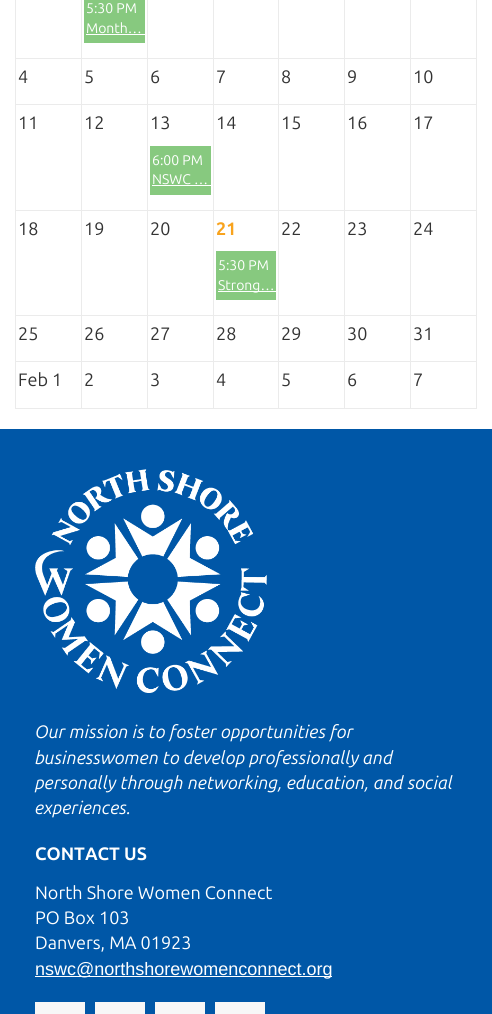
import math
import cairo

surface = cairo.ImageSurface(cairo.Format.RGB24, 492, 1014)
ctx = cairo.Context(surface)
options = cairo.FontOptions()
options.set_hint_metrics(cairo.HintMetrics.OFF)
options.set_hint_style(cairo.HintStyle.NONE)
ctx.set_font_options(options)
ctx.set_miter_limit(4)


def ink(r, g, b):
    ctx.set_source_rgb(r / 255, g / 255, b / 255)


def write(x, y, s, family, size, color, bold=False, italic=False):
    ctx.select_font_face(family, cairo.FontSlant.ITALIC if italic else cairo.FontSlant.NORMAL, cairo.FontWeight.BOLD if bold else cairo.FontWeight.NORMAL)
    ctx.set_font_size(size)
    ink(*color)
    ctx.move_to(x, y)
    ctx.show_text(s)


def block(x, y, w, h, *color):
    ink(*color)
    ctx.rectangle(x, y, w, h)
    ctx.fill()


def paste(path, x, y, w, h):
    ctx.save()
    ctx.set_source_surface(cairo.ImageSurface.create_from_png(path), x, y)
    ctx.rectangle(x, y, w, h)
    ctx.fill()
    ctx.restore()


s1 = dict(family="Ubuntu", size=14, color=(255, 255, 255))
s2 = dict(family="Ubuntu", size=18, color=(51, 51, 51))
s3 = dict(family="Ubuntu", size=18, color=(248, 163, 29), bold=True)
s4 = dict(family="Ubuntu", size=18, color=(255, 255, 255), italic=True)
s5 = dict(family="Ubuntu", size=18, color=(255, 255, 255), bold=True)
s6 = dict(family="Ubuntu", size=18, color=(255, 255, 255))
s7 = dict(family="Liberation Sans", size=18, color=(255, 255, 255))

ink(255, 255, 255)
ctx.paint()
block(476, 0, 1, 409, 235, 235, 235)
block(15, 408, 462, 1, 235, 235, 235)
block(15, 0, 1, 409, 235, 235, 235)
block(84, 0, 61, 43, 135, 201, 127)
write(86, 13, "5:30 PM", **s1)
write(86, 33, "Month…", **s1)
block(86, 34, 59, 1, 255, 255, 255)
block(15, 58, 462, 1, 235, 235, 235)
block(15, 104, 462, 1, 235, 235, 235)
block(15, 210, 462, 1, 235, 235, 235)
block(15, 315, 462, 1, 235, 235, 235)
block(15, 361, 462, 1, 235, 235, 235)
block(81, 397, 1, 12, 235, 235, 235)
block(81, 351, 1, 47, 235, 235, 235)
block(81, 246, 1, 106, 235, 235, 235)
block(81, 140, 1, 107, 235, 235, 235)
block(81, 94, 1, 47, 235, 235, 235)
block(81, 0, 1, 95, 235, 235, 235)
write(18, 83, "4", **s2)
block(147, 397, 1, 12, 235, 235, 235)
block(147, 351, 1, 47, 235, 235, 235)
block(147, 246, 1, 106, 235, 235, 235)
block(147, 140, 1, 107, 235, 235, 235)
block(147, 94, 1, 47, 235, 235, 235)
block(147, 0, 1, 95, 235, 235, 235)
write(84, 83, "5", **s2)
block(213, 397, 1, 12, 235, 235, 235)
block(213, 351, 1, 47, 235, 235, 235)
block(213, 246, 1, 106, 235, 235, 235)
block(213, 140, 1, 107, 235, 235, 235)
block(213, 94, 1, 47, 235, 235, 235)
block(213, 0, 1, 95, 235, 235, 235)
write(150, 83, "6", **s2)
block(278, 397, 1, 12, 235, 235, 235)
block(278, 351, 1, 47, 235, 235, 235)
block(278, 246, 1, 106, 235, 235, 235)
block(278, 140, 1, 107, 235, 235, 235)
block(278, 94, 1, 47, 235, 235, 235)
block(278, 0, 1, 95, 235, 235, 235)
write(216, 83, "7", **s2)
block(344, 397, 1, 12, 235, 235, 235)
block(344, 351, 1, 47, 235, 235, 235)
block(344, 246, 1, 106, 235, 235, 235)
block(344, 140, 1, 107, 235, 235, 235)
block(344, 94, 1, 47, 235, 235, 235)
block(344, 0, 1, 95, 235, 235, 235)
write(281, 83, "8", **s2)
block(410, 397, 1, 12, 235, 235, 235)
block(410, 351, 1, 47, 235, 235, 235)
block(410, 246, 1, 106, 235, 235, 235)
block(410, 140, 1, 107, 235, 235, 235)
block(410, 94, 1, 47, 235, 235, 235)
block(410, 0, 1, 95, 235, 235, 235)
write(347, 83, "9", **s2)
write(413, 83, "10", **s2)
write(18, 129, "11", **s2)
write(84, 129, "12", **s2)
write(150, 129, "13", **s2)
write(216, 129, "14", **s2)
write(281, 129, "15", **s2)
write(347, 129, "16", **s2)
write(413, 129, "17", **s2)
block(150, 146, 61, 49, 135, 201, 127)
write(152, 165, "6:00 PM", **s1)
write(152, 184, "NSWC …", **s1)
block(152, 185, 59, 1, 255, 255, 255)
write(18, 235, "18", **s2)
write(84, 235, "19", **s2)
write(150, 235, "20", **s2)
write(216, 235, "21", **s3)
write(281, 235, "22", **s2)
write(347, 235, "23", **s2)
write(413, 235, "24", **s2)
block(216, 251, 60, 49, 135, 201, 127)
write(218, 270, "5:30 PM", **s1)
block(218, 291, 58, 1, 255, 255, 255)
write(218, 290, "Strong…", **s1)
write(18, 340, "25", **s2)
write(84, 340, "26", **s2)
write(150, 340, "27", **s2)
write(216, 340, "28", **s2)
write(281, 340, "29", **s2)
write(347, 340, "30", **s2)
write(413, 340, "31", **s2)
write(18, 386, "Feb 1", **s2)
write(84, 386, "2", **s2)
write(150, 386, "3", **s2)
write(216, 386, "4", **s2)
write(281, 386, "5", **s2)
write(347, 386, "6", **s2)
write(413, 386, "7", **s2)
block(0, 429, 492, 585, 0, 87, 167)
paste("pic1.png", 35, 469, 232, 224)
write(35, 738, "Our mission is to foster opportunities for", **s4)
write(35, 764, "businesswomen to develop professionally and", **s4)
write(35, 789, "personally through networking, education, and social", **s4)
write(35, 814, "experiences.", **s4)
write(35, 860, "CONTACT US", **s5)
write(35, 899, "North Shore Women Connect", **s6)
write(35, 924, "PO Box 103", **s6)
write(35, 949, "Danvers, MA 01923", **s6)
block(35, 976, 297, 1, 255, 255, 255)
write(35, 975, "nswc@northshorewomenconnect.org", **s7)
block(35, 1002, 50, 12, 247, 247, 247)
block(95, 1002, 50, 12, 247, 247, 247)
block(155, 1002, 50, 12, 247, 247, 247)
block(215, 1002, 50, 12, 247, 247, 247)
surface.write_to_png("screenshot.png")
